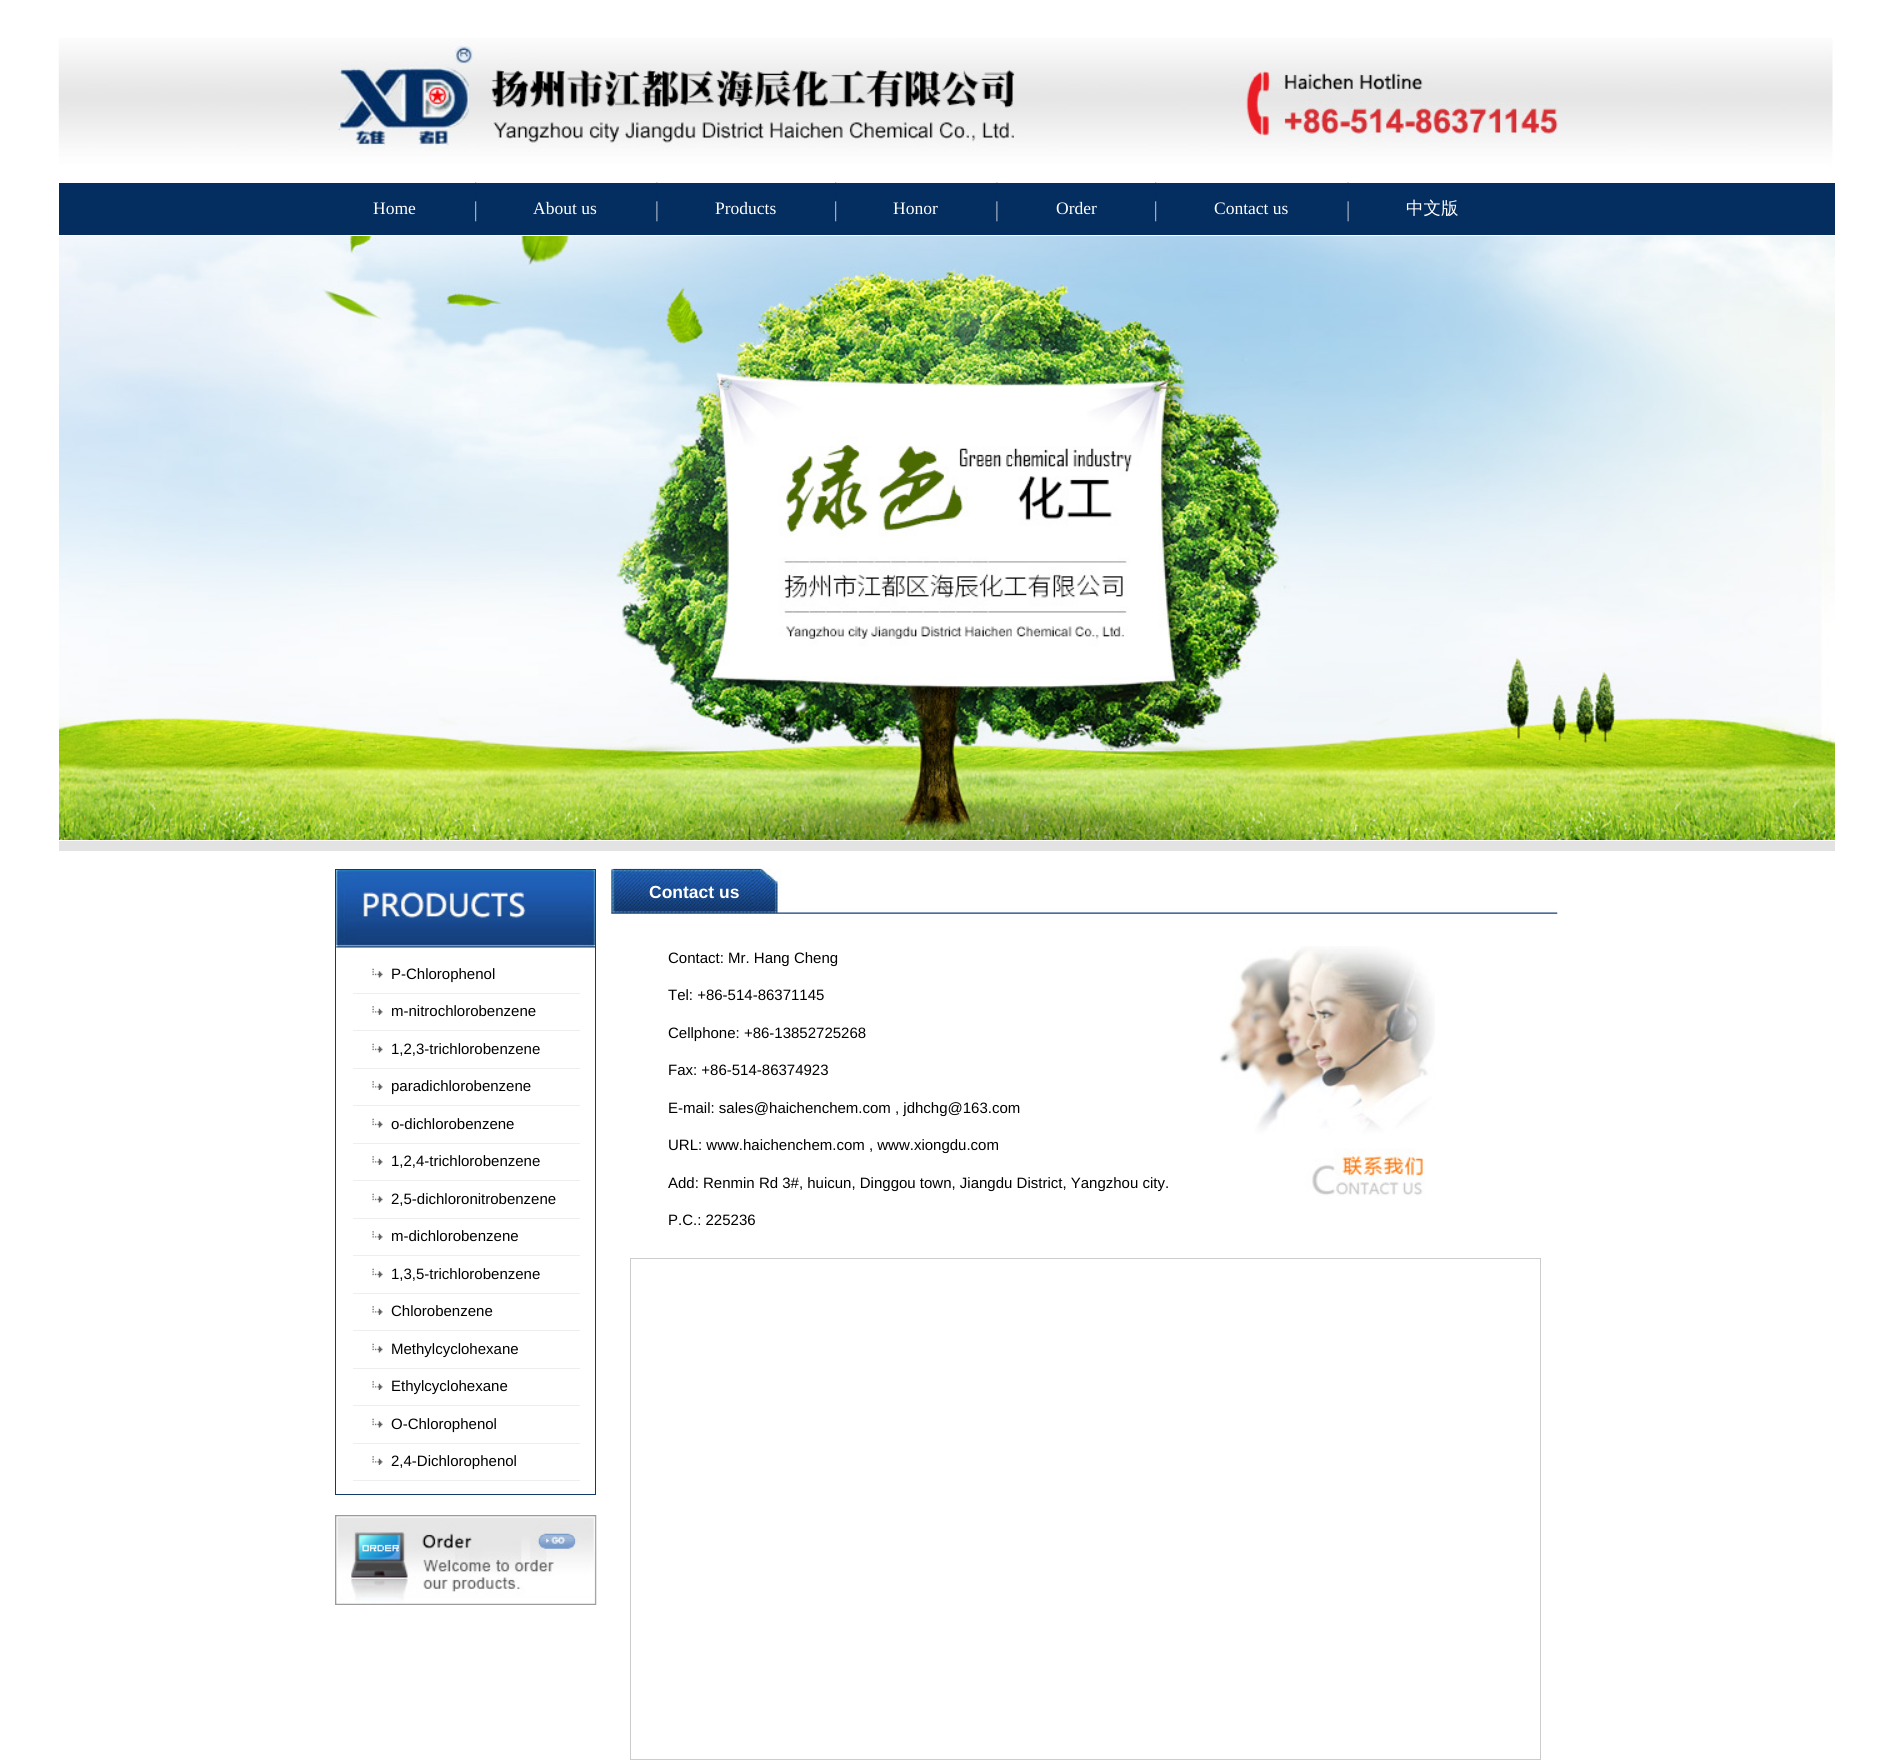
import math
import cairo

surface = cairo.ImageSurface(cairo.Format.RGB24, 1892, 1761)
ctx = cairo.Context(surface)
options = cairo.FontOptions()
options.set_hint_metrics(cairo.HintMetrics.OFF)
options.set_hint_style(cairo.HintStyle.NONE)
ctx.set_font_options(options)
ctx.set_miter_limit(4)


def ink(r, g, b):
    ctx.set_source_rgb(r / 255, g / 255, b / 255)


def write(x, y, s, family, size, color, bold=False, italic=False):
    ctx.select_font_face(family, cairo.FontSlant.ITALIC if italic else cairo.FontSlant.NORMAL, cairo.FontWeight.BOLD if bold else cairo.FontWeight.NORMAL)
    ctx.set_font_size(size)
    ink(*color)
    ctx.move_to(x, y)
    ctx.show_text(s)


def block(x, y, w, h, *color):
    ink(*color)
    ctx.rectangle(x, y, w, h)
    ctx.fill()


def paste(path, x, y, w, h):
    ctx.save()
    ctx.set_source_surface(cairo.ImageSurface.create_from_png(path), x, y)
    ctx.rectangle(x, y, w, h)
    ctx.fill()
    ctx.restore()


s1 = dict(family="Liberation Serif", size=17.5, color=(255, 255, 255))
s2 = dict(family="WenQuanYi Zen Hei Medium", size=17.5, color=(255, 255, 255))
s3 = dict(family="Liberation Sans", size=15, color=(0, 0, 0))
s4 = dict(family="Liberation Sans", size=17.5, color=(255, 255, 255), bold=True)

ink(255, 255, 255)
ctx.paint()
block(59, 183, 1776, 52, 4, 46, 96)
paste("pic2.png", 475, 182, 2, 40)
paste("pic3.png", 656, 182, 2, 40)
paste("pic2.png", 835, 182, 2, 40)
paste("pic3.png", 996, 182, 2, 40)
paste("pic2.png", 1155, 182, 2, 40)
paste("pic4.png", 1347, 182, 2, 40)
paste("pic1.png", 58, 38, 1775, 145)
write(373, 214, "Home", **s1)
write(533, 214, "About us", **s1)
write(715, 214, "Products", **s1)
write(893, 214, "Honor", **s1)
write(1056, 214, "Order", **s1)
write(1214, 214, "Contact us", **s1)
write(1406, 214, "中文版", **s2)
paste("pic5.png", 59, 236, 1776, 604)
block(59, 841, 1776, 10, 227, 227, 227)
ctx.rectangle(335.5, 869.5, 260, 625)
ink(18, 57, 109)
ctx.set_line_width(1)
ctx.stroke()
paste("pic6.png", 336, 870, 259, 78)
paste("pic7.png", 372, 968, 11, 10)
block(353, 993, 227, 1, 238, 238, 238)
write(391, 979, "P-Chlorophenol", **s3)
paste("pic8.png", 372, 1006, 11, 9)
block(353, 1030, 227, 1, 238, 238, 238)
write(391, 1016, "m-nitrochlorobenzene", **s3)
paste("pic7.png", 372, 1043, 11, 10)
block(353, 1068, 227, 1, 238, 238, 238)
write(391, 1054, "1,2,3-trichlorobenzene", **s3)
paste("pic8.png", 372, 1081, 11, 9)
block(353, 1105, 227, 1, 238, 238, 238)
write(391, 1091, "paradichlorobenzene", **s3)
paste("pic7.png", 372, 1118, 11, 10)
block(353, 1143, 227, 1, 238, 238, 238)
write(391, 1129, "o-dichlorobenzene", **s3)
paste("pic8.png", 372, 1156, 11, 9)
block(353, 1180, 227, 1, 238, 238, 238)
write(391, 1166, "1,2,4-trichlorobenzene", **s3)
paste("pic7.png", 372, 1193, 11, 10)
block(353, 1218, 227, 1, 238, 238, 238)
write(391, 1204, "2,5-dichloronitrobenzene", **s3)
paste("pic8.png", 372, 1231, 11, 9)
block(353, 1255, 227, 1, 238, 238, 238)
write(391, 1241, "m-dichlorobenzene", **s3)
paste("pic7.png", 372, 1268, 11, 10)
block(353, 1293, 227, 1, 238, 238, 238)
write(391, 1279, "1,3,5-trichlorobenzene", **s3)
paste("pic8.png", 372, 1306, 11, 9)
block(353, 1330, 227, 1, 238, 238, 238)
write(391, 1316, "Chlorobenzene", **s3)
paste("pic7.png", 372, 1343, 11, 10)
block(353, 1368, 227, 1, 238, 238, 238)
write(391, 1354, "Methylcyclohexane", **s3)
paste("pic8.png", 372, 1381, 11, 9)
block(353, 1405, 227, 1, 238, 238, 238)
write(391, 1391, "Ethylcyclohexane", **s3)
paste("pic7.png", 372, 1418, 11, 10)
block(353, 1443, 227, 1, 238, 238, 238)
write(391, 1429, "O-Chlorophenol", **s3)
paste("pic8.png", 372, 1456, 11, 9)
block(353, 1480, 227, 1, 238, 238, 238)
write(391, 1466, "2,4-Dichlorophenol", **s3)
paste("pic9.png", 335, 1515, 262, 90)
paste("pic10.png", 611, 868, 947, 46)
write(649, 898, "Contact us", **s4)
paste("pic11.png", 1219, 946, 216, 250)
write(668, 963, "Contact: Mr. Hang Cheng", **s3)
write(668, 1000, "Tel: +86-514-86371145", **s3)
write(668, 1038, "Cellphone: +86-13852725268", **s3)
write(668, 1075, "Fax: +86-514-86374923", **s3)
write(668, 1113, "E-mail: sales@haichenchem.com , jdhchg@163.com", **s3)
write(668, 1150, "URL: www.haichenchem.com , www.xiongdu.com", **s3)
write(668, 1188, "Add: Renmin Rd 3#, huicun, Dinggou town, Jiangdu District, Yangzhou city.", **s3)
write(668, 1225, "P.C.: 225236", **s3)
ctx.rectangle(630.5, 1258.5, 910, 501)
ink(204, 204, 204)
ctx.stroke()
surface.write_to_png("screenshot.png")
